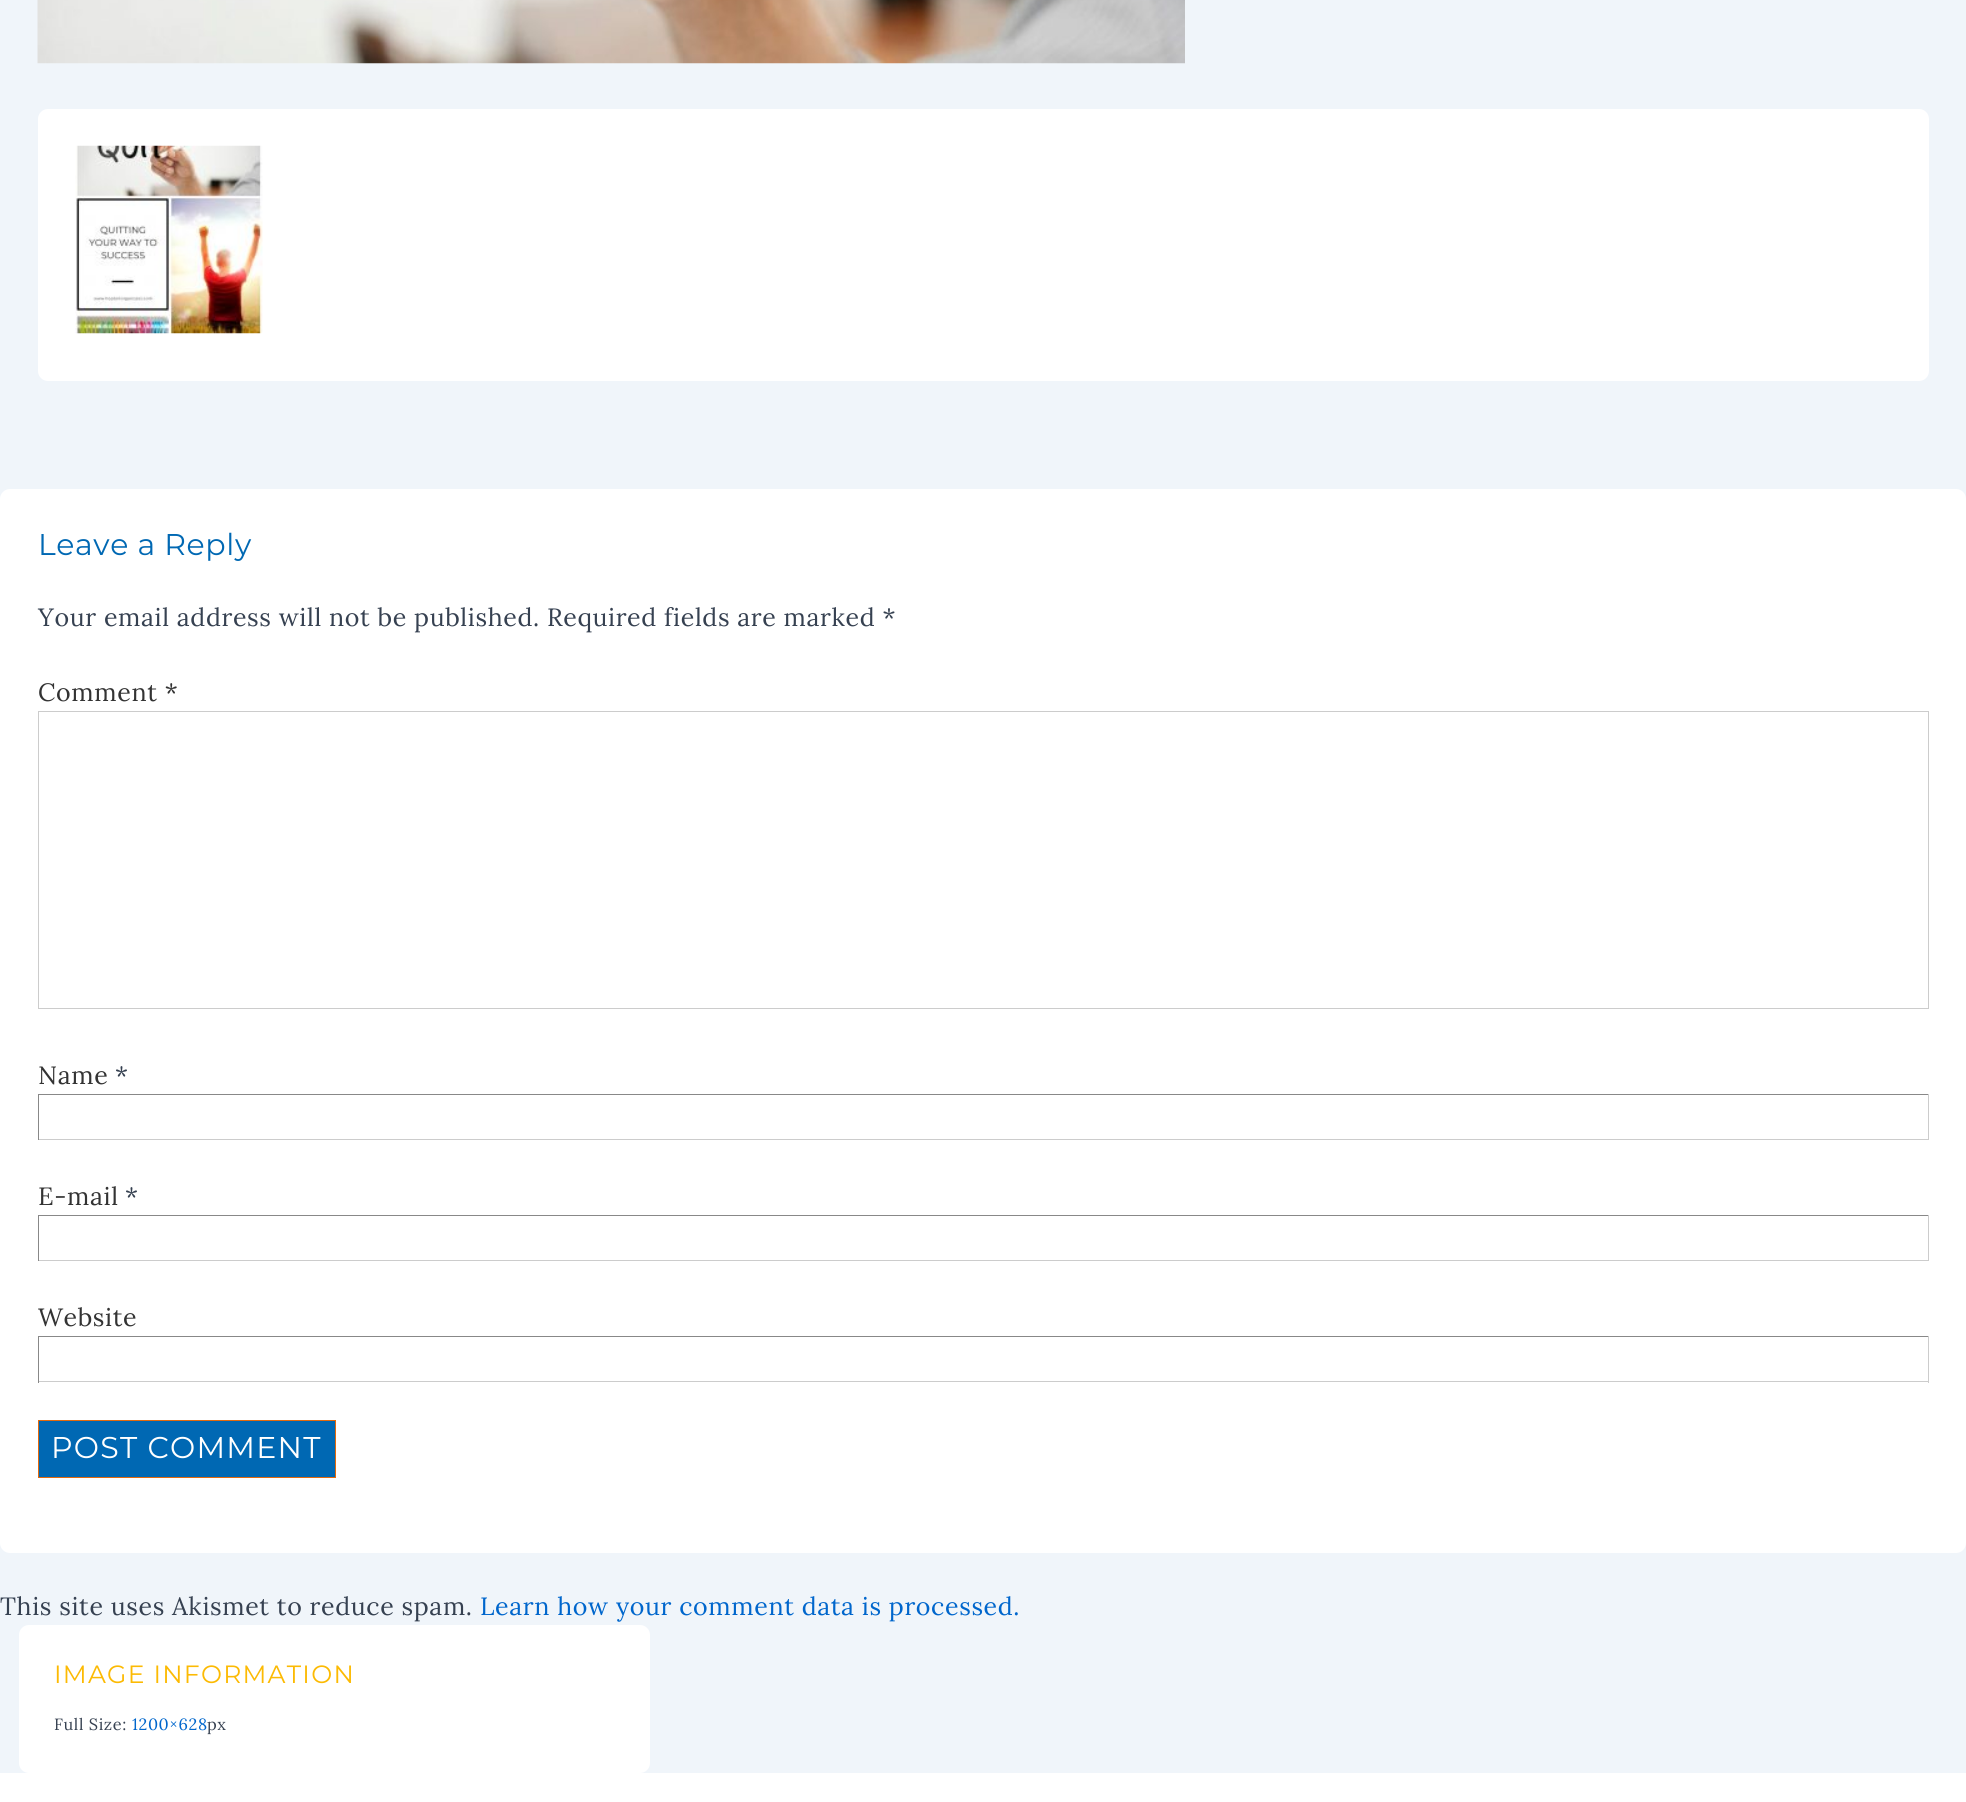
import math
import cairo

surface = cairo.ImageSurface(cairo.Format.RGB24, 1966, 1802)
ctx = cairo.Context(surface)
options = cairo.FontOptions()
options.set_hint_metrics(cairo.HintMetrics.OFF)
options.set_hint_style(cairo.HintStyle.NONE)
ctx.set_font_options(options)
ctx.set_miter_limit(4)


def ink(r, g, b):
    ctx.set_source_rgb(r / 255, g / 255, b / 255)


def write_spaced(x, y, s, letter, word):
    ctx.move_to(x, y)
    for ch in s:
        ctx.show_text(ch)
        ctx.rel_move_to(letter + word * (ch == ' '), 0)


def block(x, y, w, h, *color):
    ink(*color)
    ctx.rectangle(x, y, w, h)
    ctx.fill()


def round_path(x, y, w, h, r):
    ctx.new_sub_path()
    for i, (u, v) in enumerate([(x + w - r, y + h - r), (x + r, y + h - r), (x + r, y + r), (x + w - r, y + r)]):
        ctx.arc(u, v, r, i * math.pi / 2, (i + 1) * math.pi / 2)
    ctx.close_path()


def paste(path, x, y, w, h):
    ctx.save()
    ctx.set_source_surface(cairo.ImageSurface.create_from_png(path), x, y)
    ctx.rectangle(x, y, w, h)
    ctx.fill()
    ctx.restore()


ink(240, 245, 250)
ctx.paint()
paste("pic1.png", 37, 0, 1148, 64)
ink(255, 255, 255)
round_path(38, 109, 1891, 272, 10)
ctx.fill()
paste("pic2.png", 75, 145, 188, 189)
round_path(0, 489, 1966, 1064, 10)
ctx.fill()
ctx.select_font_face("Montserrat")
ctx.set_font_size(30)
ink(0, 104, 179)
write_spaced(38, 555, "Leave a Reply", 0.62, 0)
ctx.select_font_face("Lora")
ctx.set_font_size(25)
ink(54, 65, 81)
write_spaced(38, 626, "Your email address will not be published. Required fields are marked *", 0.62, 0)
ink(51, 51, 51)
write_spaced(38, 701, "Comment *", 0.62, 0)
ctx.rectangle(38.5, 711.5, 1890, 297)
ink(204, 204, 204)
ctx.set_line_width(1)
ctx.stroke()
ink(51, 51, 51)
write_spaced(38, 1084, "Name", 0.62, 0)
ink(54, 65, 81)
write_spaced(115, 1084, "*", 0.62, 0)
block(38, 1094, 1891, 1, 136, 136, 136)
block(1928, 1094, 1, 46, 204, 204, 204)
block(38, 1139, 1891, 1, 204, 204, 204)
block(38, 1094, 1, 46, 136, 136, 136)
ink(51, 51, 51)
write_spaced(38, 1205, "E-mail", 0.62, 0)
ink(54, 65, 81)
write_spaced(125, 1205, "*", 0.62, 0)
block(38, 1215, 1891, 1, 136, 136, 136)
block(1928, 1215, 1, 46, 204, 204, 204)
block(38, 1260, 1891, 1, 204, 204, 204)
block(38, 1215, 1, 46, 136, 136, 136)
ink(51, 51, 51)
write_spaced(38, 1326, "Website", 0.62, 0)
block(38, 1336, 1891, 1, 136, 136, 136)
block(1928, 1336, 1, 47, 204, 204, 204)
block(38, 1381, 1891, 1, 204, 204, 204)
block(38, 1336, 1, 47, 136, 136, 136)
ink(0, 104, 179)
ctx.rectangle(38.5, 1420.5, 297, 57)
ctx.fill_preserve()
ink(227, 105, 12)
ctx.stroke()
ctx.select_font_face("Montserrat")
ctx.set_font_size(30)
ink(255, 255, 255)
write_spaced(51, 1458, "POST COMMENT", 1.25, 0)
ctx.select_font_face("Lora")
ctx.set_font_size(25)
ink(54, 65, 81)
write_spaced(0, 1615, "This site uses Akismet to reduce spam.", 0.62, 0)
ink(0, 102, 204)
write_spaced(480, 1615, "Learn how your comment data is processed.", 0.62, 0)
ink(255, 255, 255)
round_path(19, 1625, 631, 148, 10)
ctx.fill()
ctx.select_font_face("Montserrat")
ink(252, 186, 3)
write_spaced(54, 1683, "IMAGE INFORMATION", 1.25, 0)
ctx.select_font_face("Lora")
ctx.set_font_size(16.25)
ink(54, 65, 81)
write_spaced(54, 1730, "Full Size:", 0.62, 0)
ink(0, 102, 204)
write_spaced(132, 1730, "1200×628", 0.62, 0)
ink(54, 65, 81)
write_spaced(207, 1730, "px", 0.62, 0)
block(0, 1773, 1966, 29, 255, 255, 255)
surface.write_to_png("screenshot.png")
